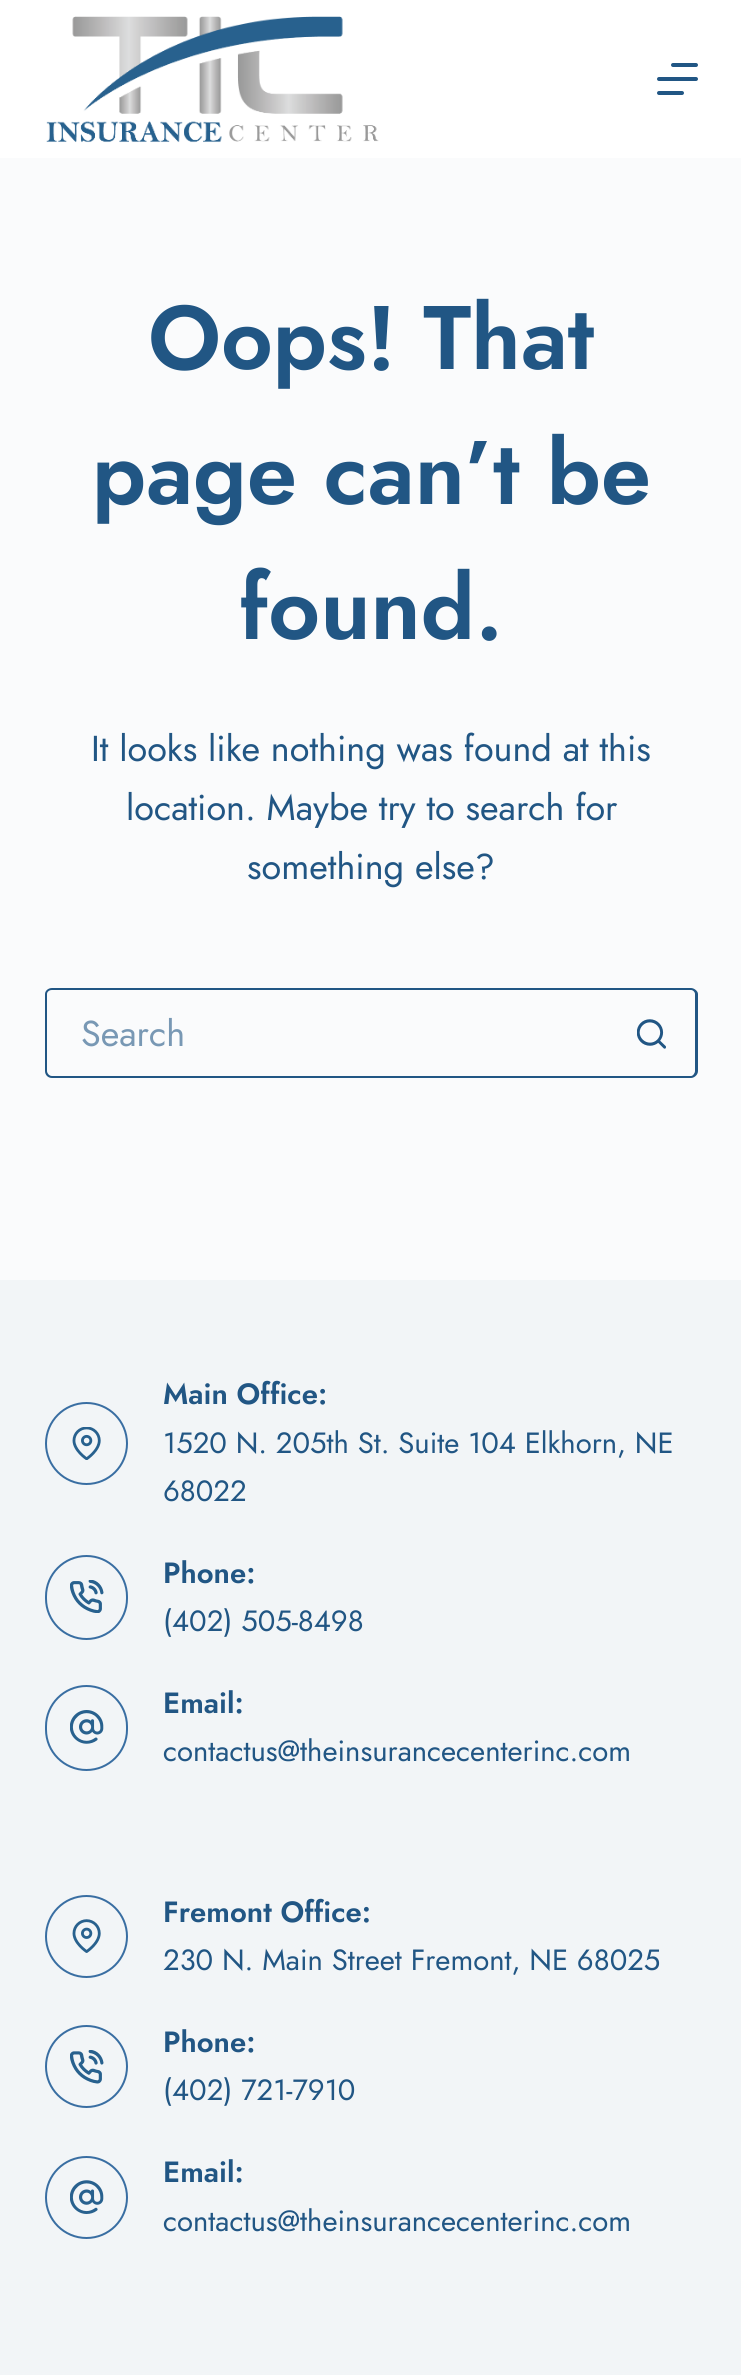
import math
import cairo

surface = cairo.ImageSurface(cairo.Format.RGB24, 741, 2375)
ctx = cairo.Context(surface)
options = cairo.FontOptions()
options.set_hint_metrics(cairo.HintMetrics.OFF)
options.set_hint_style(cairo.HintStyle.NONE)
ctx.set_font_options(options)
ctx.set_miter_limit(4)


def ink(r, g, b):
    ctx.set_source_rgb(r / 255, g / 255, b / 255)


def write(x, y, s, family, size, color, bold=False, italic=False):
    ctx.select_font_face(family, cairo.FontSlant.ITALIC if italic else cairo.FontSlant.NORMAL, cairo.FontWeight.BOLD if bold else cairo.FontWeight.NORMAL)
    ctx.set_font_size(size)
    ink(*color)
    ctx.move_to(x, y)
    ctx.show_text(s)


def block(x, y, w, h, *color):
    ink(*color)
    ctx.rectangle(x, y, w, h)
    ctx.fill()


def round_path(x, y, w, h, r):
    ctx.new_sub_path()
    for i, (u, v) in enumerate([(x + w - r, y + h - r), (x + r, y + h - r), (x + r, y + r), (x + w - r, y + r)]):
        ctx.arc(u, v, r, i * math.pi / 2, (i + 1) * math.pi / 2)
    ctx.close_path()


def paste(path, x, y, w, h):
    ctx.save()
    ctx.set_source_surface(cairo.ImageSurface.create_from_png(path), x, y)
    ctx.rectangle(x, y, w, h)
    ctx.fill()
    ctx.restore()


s1 = dict(family="Jost SemiBold", size=90, color=(33, 86, 132))
s2 = dict(family="Jost", size=36, color=(33, 86, 132))
s3 = dict(family="Jost", size=36, color=(120, 152, 180))
s4 = dict(family="Jost SemiBold", size=29.25, color=(33, 86, 132))
s5 = dict(family="Jost", size=29.25, color=(33, 86, 132))

ink(250, 251, 252)
ctx.paint()
block(0, 0, 741, 158, 255, 255, 255)
paste("pic1.png", 46, 16, 333, 127)
ink(33, 86, 132)
round_path(671, 63, 27, 4, 2)
ctx.fill()
round_path(657, 77, 41, 4, 2)
ctx.fill()
round_path(657, 91, 27, 4, 2)
ctx.fill()
write(148, 369, "Oops! That", **s1)
write(92, 504, "page can’t be", **s1)
write(239, 639, "found.", **s1)
write(91, 761, "It looks like nothing was found at this", **s2)
write(126, 820, "location. Maybe try to search for", **s2)
write(247, 879, "something else?", **s2)
ctx.set_fill_rule(cairo.FillRule.EVEN_ODD)
ctx.new_path()
ctx.move_to(52, 988)
ctx.line_to(608, 988)
ctx.line_to(608, 1078)
ctx.line_to(52, 1078)
ctx.curve_to(48, 1078, 45, 1075, 45, 1071)
ctx.line_to(45, 994)
ctx.curve_to(45, 991, 48, 988, 52, 988)
ctx.close_path()
ctx.move_to(52, 990)
ctx.line_to(608, 990)
ctx.line_to(608, 1076)
ctx.line_to(52, 1076)
ctx.curve_to(49, 1076, 47, 1073, 47, 1071)
ctx.line_to(47, 994)
ctx.curve_to(47, 992, 49, 990, 52, 990)
ctx.close_path()
ctx.fill()
write(81, 1046, "Search", **s3)
ink(33, 86, 132)
ctx.new_path()
ctx.move_to(608, 988)
ctx.line_to(691, 988)
ctx.curve_to(694, 988, 698, 991, 698, 994)
ctx.line_to(698, 1071)
ctx.curve_to(698, 1075, 694, 1078, 691, 1078)
ctx.line_to(608, 1078)
ctx.close_path()
ctx.move_to(608, 990)
ctx.line_to(691, 990)
ctx.curve_to(693, 990, 695, 992, 695, 994)
ctx.line_to(695, 1071)
ctx.curve_to(695, 1073, 693, 1076, 691, 1076)
ctx.line_to(608, 1076)
ctx.close_path()
ctx.fill()
paste("pic2.png", 637, 1019, 29, 30)
block(0, 1280, 741, 1095, 242, 245, 247)
ctx.arc(86.5, 1443.5, 40.5, 0, 2 * math.pi)
ink(57, 110, 162)
ctx.stroke()
paste("pic3.png", 72, 1427, 29, 33)
write(163, 1404, "Main Office:", **s4)
write(163, 1453, "1520 N. 205th St. Suite 104 Elkhorn, NE", **s5)
write(163, 1501, "68022", **s5)
round_path(46, 1556, 81, 83, 40.5)
ink(57, 110, 162)
ctx.stroke()
paste("pic4.png", 70, 1580, 34, 33)
write(163, 1583, "Phone:", **s4)
write(163, 1631, "(402) 505-8498", **s5)
round_path(46, 1686, 81, 84, 40.5)
ink(57, 110, 162)
ctx.stroke()
paste("pic5.png", 70, 1710, 34, 34)
write(163, 1713, "Email:", **s4)
write(163, 1761, "contactus@theinsurancecenterinc.com", **s5)
ctx.new_path()
ctx.arc(86.5, 1936.5, 40.5, 0, 2 * math.pi)
ink(57, 110, 162)
ctx.stroke()
paste("pic6.png", 72, 1919, 29, 34)
write(163, 1922, "Fremont Office:", **s4)
write(163, 1970, "230 N. Main Street Fremont, NE 68025", **s5)
ctx.new_path()
ctx.arc(86.5, 2066.5, 40.5, 0, 2 * math.pi)
ink(57, 110, 162)
ctx.stroke()
paste("pic7.png", 70, 2050, 34, 34)
write(163, 2052, "Phone:", **s4)
write(163, 2100, "(402) 721-7910", **s5)
ctx.new_path()
ctx.arc(86.5, 2197.5, 40.5, 0, 2 * math.pi)
ink(57, 110, 162)
ctx.stroke()
paste("pic8.png", 70, 2180, 34, 34)
write(163, 2182, "Email:", **s4)
write(163, 2231, "contactus@theinsurancecenterinc.com", **s5)
surface.write_to_png("screenshot.png")
